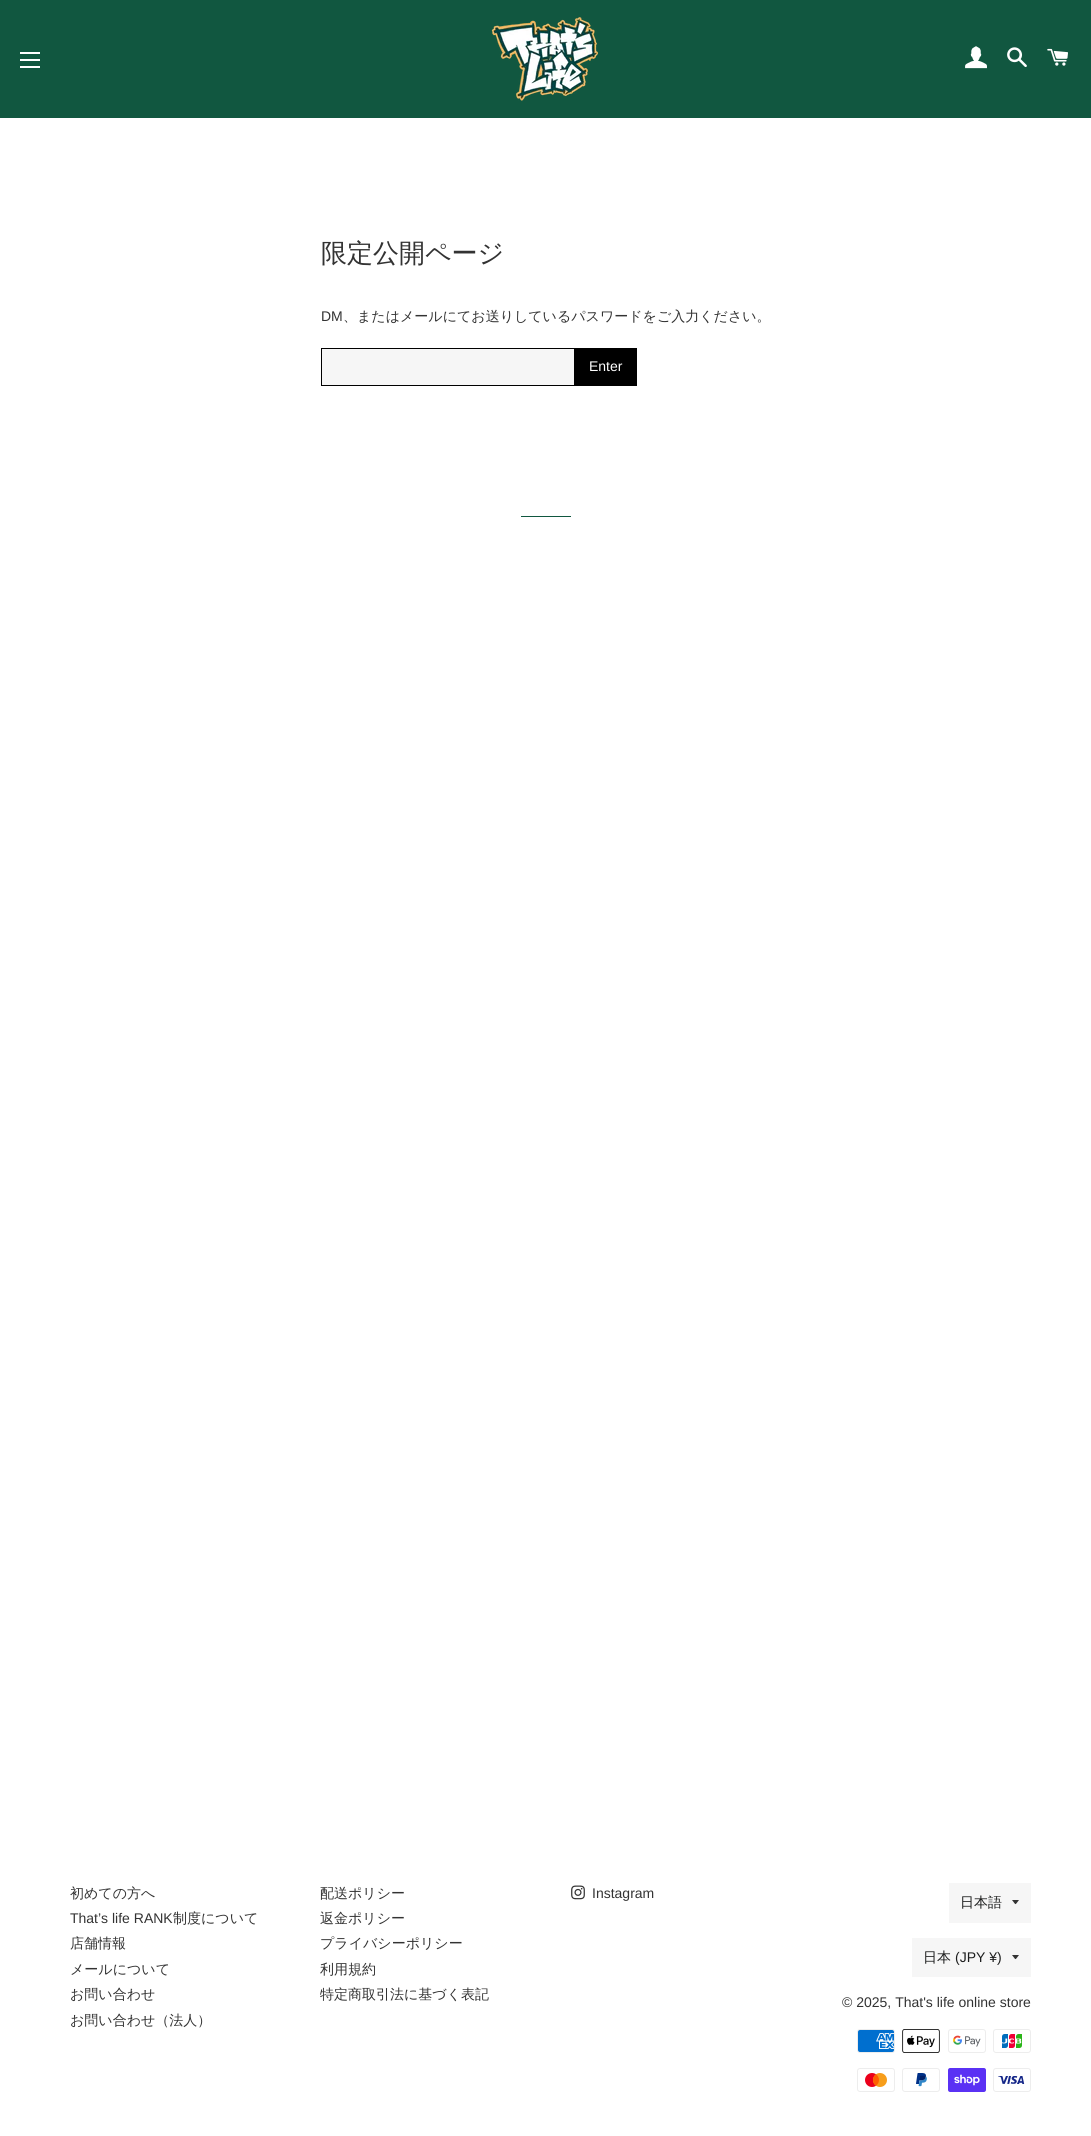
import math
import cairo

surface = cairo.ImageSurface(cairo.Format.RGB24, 1091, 2136)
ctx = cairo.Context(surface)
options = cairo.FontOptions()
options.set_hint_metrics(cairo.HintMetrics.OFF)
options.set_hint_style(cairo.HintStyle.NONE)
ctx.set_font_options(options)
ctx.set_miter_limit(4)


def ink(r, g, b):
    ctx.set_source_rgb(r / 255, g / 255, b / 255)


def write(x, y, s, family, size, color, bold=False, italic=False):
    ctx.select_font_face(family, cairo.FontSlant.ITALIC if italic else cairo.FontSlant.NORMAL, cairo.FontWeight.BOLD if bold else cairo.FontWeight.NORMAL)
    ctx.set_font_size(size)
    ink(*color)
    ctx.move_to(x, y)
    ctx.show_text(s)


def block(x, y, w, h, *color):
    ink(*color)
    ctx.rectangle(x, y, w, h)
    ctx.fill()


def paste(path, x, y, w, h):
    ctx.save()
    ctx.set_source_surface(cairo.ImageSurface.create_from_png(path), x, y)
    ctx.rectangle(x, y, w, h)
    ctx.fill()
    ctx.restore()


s1 = dict(family="WenQuanYi Zen Hei Medium", size=26, color=(51, 51, 51))
s2 = dict(family="Liberation Sans", size=14, color=(51, 51, 51))
s3 = dict(family="WenQuanYi Zen Hei Medium", size=14, color=(51, 51, 51))
s4 = dict(family="Liberation Sans", size=14, color=(255, 255, 255))
s5 = dict(family="WenQuanYi Zen Hei Medium", size=14, color=(28, 29, 29))
s6 = dict(family="Liberation Sans", size=14, color=(28, 29, 29))

ink(255, 255, 255)
ctx.paint()
block(0, 0, 1091, 118, 17, 87, 64)
block(20, 52, 20, 2, 255, 255, 255)
block(20, 59, 20, 2, 255, 255, 255)
block(20, 66, 20, 2, 255, 255, 255)
paste("pic1.png", 491, 17, 107, 84)
paste("pic2.png", 965, 46, 22, 23)
paste("pic3.png", 1007, 47, 20, 20)
paste("pic4.png", 1047, 48, 21, 18)
write(321, 262, "限定公開ページ", **s1)
write(321, 321, "DM", **s2)
write(343, 321, "、またはメールにてお送りしているパスワードをご入力ください。", **s3)
block(322, 349, 252, 36, 246, 246, 246)
block(321, 348, 253, 1, 0, 0, 0)
block(321, 385, 253, 1, 0, 0, 0)
block(321, 348, 1, 38, 0, 0, 0)
block(574, 348, 63, 38, 0, 0, 0)
write(589, 371, "Enter", **s4)
block(521, 516, 50, 1, 17, 87, 64)
write(70, 1898, "初めての方へ", **s3)
write(70, 1923, "That’s life RANK", **s2)
write(173, 1923, "制度について", **s3)
write(70, 1948, "店舗情報", **s3)
write(70, 1974, "メールについて", **s3)
write(70, 1999, "お問い合わせ", **s3)
write(70, 2025, "お問い合わせ（法人）", **s3)
write(320, 1898, "配送ポリシー", **s3)
write(320, 1923, "返金ポリシー", **s3)
write(320, 1948, "プライバシーポリシー", **s3)
write(320, 1974, "利用規約", **s3)
write(320, 1999, "特定商取引法に基づく表記", **s3)
paste("pic5.png", 571, 1885, 14, 15)
write(592, 1898, "Instagram", **s2)
block(949, 1883, 82, 40, 246, 246, 246)
ink(51, 51, 51)
ctx.new_path()
ctx.move_to(1012, 1900)
ctx.curve_to(1016.5, 1905.5, 1014.5, 1905.5, 1019, 1900)
ctx.close_path()
ctx.fill()
write(960, 1907, "日本語", **s5)
block(912, 1938, 119, 39, 246, 246, 246)
ink(51, 51, 51)
ctx.new_path()
ctx.move_to(1012, 1955)
ctx.curve_to(1016.5, 1960.5, 1014.5, 1960.5, 1019, 1955)
ctx.close_path()
ctx.fill()
write(923, 1962, "日本", **s5)
write(955, 1962, "(JPY ¥)", **s6)
write(842, 2007, "© 2025, That's life online store", **s2)
paste("pic6.png", 857, 2029, 38, 24)
paste("pic7.png", 902, 2029, 38, 24)
paste("pic8.png", 948, 2029, 38, 24)
paste("pic9.png", 993, 2029, 38, 24)
paste("pic10.png", 857, 2068, 38, 24)
paste("pic11.png", 902, 2068, 38, 24)
paste("pic12.png", 948, 2068, 38, 24)
paste("pic13.png", 993, 2068, 38, 24)
surface.write_to_png("screenshot.png")
